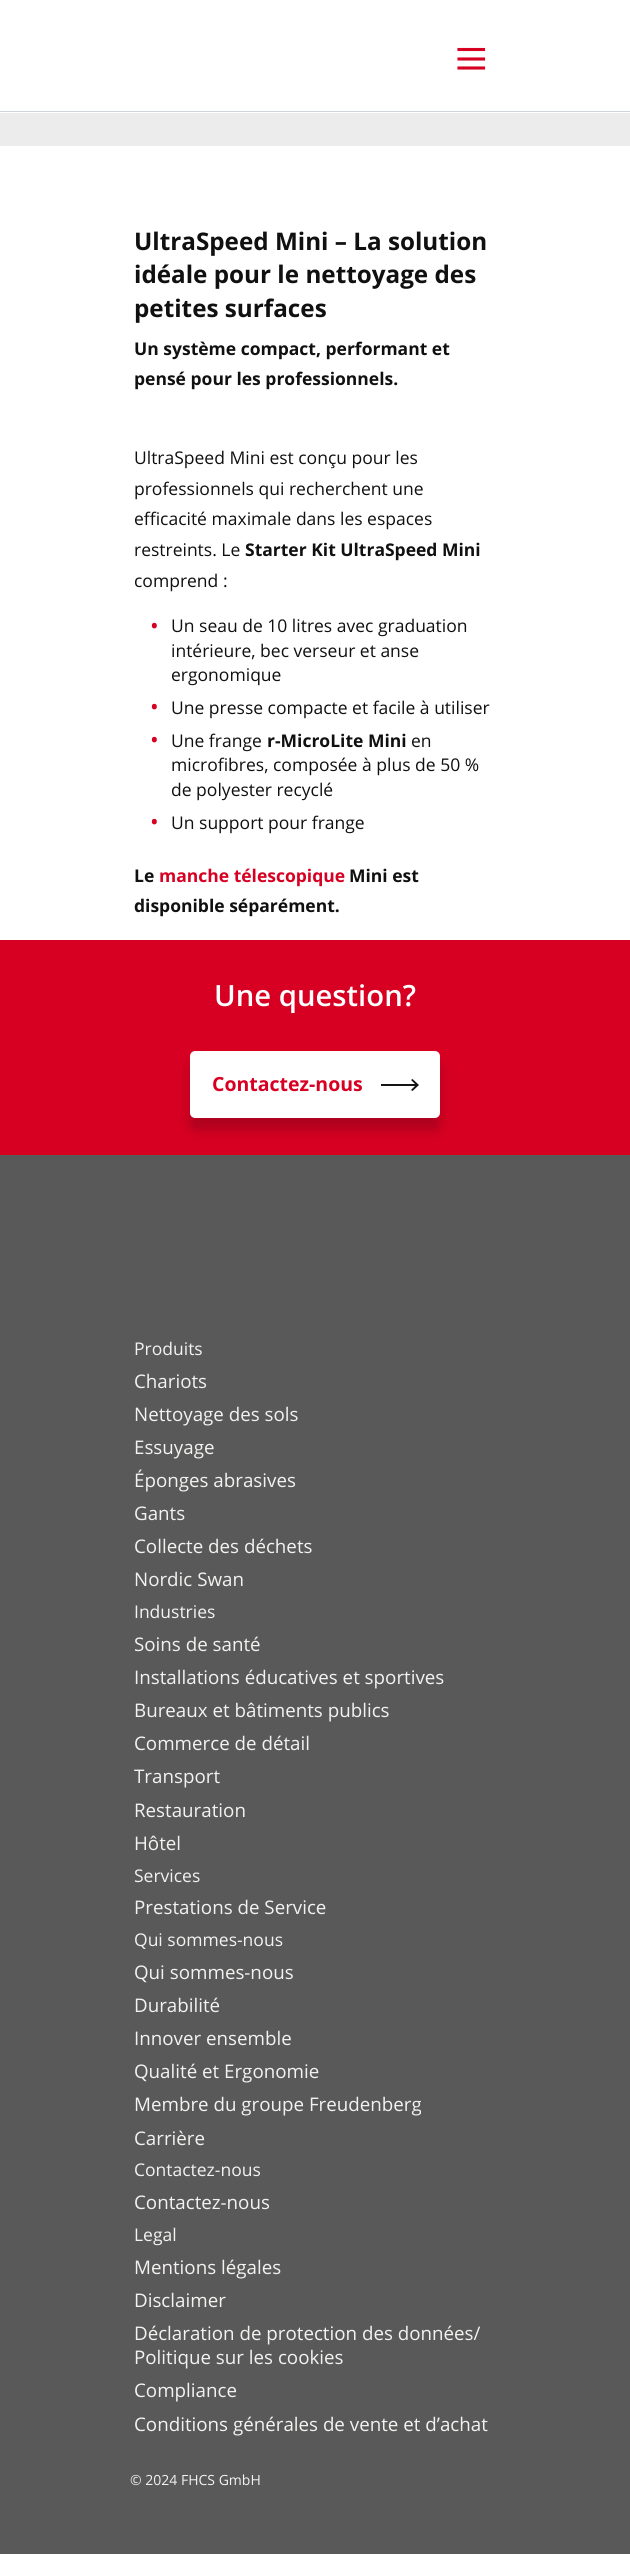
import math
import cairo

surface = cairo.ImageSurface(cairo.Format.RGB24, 630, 2554)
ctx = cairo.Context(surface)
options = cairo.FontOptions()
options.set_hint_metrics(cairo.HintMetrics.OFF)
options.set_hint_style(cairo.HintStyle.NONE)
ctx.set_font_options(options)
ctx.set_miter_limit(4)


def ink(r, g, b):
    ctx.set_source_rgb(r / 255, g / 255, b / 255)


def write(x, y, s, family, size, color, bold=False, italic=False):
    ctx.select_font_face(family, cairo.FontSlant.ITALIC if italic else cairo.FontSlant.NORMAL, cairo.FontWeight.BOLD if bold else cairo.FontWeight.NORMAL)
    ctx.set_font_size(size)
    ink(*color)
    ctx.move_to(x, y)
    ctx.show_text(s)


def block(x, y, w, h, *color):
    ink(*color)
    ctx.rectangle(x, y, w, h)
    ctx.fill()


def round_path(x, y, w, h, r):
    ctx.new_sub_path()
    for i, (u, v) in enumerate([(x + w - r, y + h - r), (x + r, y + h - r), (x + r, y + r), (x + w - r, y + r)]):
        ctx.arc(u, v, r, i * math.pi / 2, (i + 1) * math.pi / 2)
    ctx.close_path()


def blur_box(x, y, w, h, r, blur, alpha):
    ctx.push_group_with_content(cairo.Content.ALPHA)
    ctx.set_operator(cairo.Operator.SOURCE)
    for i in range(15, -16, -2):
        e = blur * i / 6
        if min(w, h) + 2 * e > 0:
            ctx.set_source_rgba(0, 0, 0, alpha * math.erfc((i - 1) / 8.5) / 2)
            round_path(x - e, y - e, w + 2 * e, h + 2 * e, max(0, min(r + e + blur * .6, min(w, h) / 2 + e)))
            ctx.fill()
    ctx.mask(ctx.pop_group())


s1 = dict(family="Open Sans", size=24.25, color=(16, 16, 16), bold=True)
s2 = dict(family="Open Sans", size=17.5, color=(16, 16, 16), bold=True)
s3 = dict(family="Open Sans", size=17.5, color=(16, 16, 16))
s4 = dict(family="Open Sans", size=23, color=(215, 0, 34))
s5 = dict(family="Open Sans", size=17.5, color=(215, 0, 34), bold=True)
s6 = dict(family="Open Sans SemiBold", size=29.25, color=(255, 255, 255))
s7 = dict(family="Open Sans", size=19.5, color=(215, 0, 34), bold=True)
s8 = dict(family="Open Sans", size=17.5, color=(243, 242, 241))
s9 = dict(family="Open Sans", size=18.75, color=(243, 242, 241))
s10 = dict(family="Open Sans", size=14, color=(243, 242, 241))

ink(255, 255, 255)
ctx.paint()
block(0, 111, 630, 1, 206, 212, 218)
ctx.new_path()
ctx.move_to(459, 49.5)
ctx.line_to(483.5, 49.5)
ctx.move_to(459, 59)
ctx.line_to(483.5, 59)
ctx.move_to(459, 68)
ctx.line_to(483.5, 68)
ink(215, 0, 34)
ctx.set_line_width(3.1)
ctx.set_line_cap(cairo.LineCap.SQUARE)
ctx.stroke()
block(0, 113, 630, 33, 236, 236, 236)
write(134, 250, "UltraSpeed Mini – La solution", **s1)
write(134, 283, "idéale pour le nettoyage des", **s1)
write(134, 317, "petites surfaces", **s1)
write(134, 355, "Un système compact, performant et", **s2)
write(134, 385, "pensé pour les professionnels.", **s2)
write(134, 464, "UltraSpeed Mini est conçu pour les", **s3)
write(134, 495, "professionnels qui recherchent une", **s3)
write(134, 525, "efficacité maximale dans les espaces", **s3)
write(134, 556, "restreints. Le", **s3)
write(245, 556, "Starter Kit UltraSpeed Mini", **s2)
write(134, 587, "comprend :", **s3)
write(150, 634, "•", **s4)
write(171, 632, "Un seau de 10 litres avec graduation", **s3)
write(171, 657, "intérieure, bec verseur et anse", **s3)
write(171, 681, "ergonomique", **s3)
write(150, 715, "•", **s4)
write(171, 714, "Une presse compacte et facile à utiliser", **s3)
write(150, 748, "•", **s4)
write(171, 747, "Une frange", **s3)
write(267, 747, "r-MicroLite Mini", **s2)
write(411, 747, "en", **s3)
write(171, 771, "microfibres, composée à plus de 50 %", **s3)
write(171, 796, "de polyester recyclé", **s3)
write(150, 830, "•", **s4)
write(171, 829, "Un support pour frange", **s3)
write(134, 882, "Le", **s2)
write(159, 882, "manche télescopique", **s5)
write(349, 882, "Mini est", **s2)
write(134, 912, "disponible séparément.", **s2)
block(0, 940, 630, 215, 215, 0, 34)
write(214, 1006, "Une question?", **s6)
ink(3, 9, 14)
blur_box(190, 1064, 250, 66, 5, 6, 0.2)
ink(255, 255, 255)
round_path(191.5, 1052.5, 247, 64, 3.5)
ctx.fill_preserve()
ctx.set_line_width(3)
ctx.set_line_cap(cairo.LineCap.BUTT)
ctx.stroke()
write(212, 1091, "Contactez-nous", **s7)
ink(21, 21, 21)
ctx.new_path()
ctx.move_to(412.5, 1079)
ctx.line_to(411, 1080)
ctx.line_to(415, 1084)
ctx.line_to(381, 1084)
ctx.line_to(381, 1086)
ctx.line_to(415, 1086)
ctx.line_to(411, 1090)
ctx.line_to(412.5, 1091)
ctx.line_to(419, 1085)
ctx.close_path()
ctx.fill()
block(0, 1155, 630, 1399, 89, 89, 89)
write(134, 1355, "Produits", **s8)
write(134, 1388, "Chariots", **s9)
write(134, 1421, "Nettoyage des sols", **s9)
write(134, 1454, "Essuyage", **s9)
write(134, 1487, "Éponges abrasives", **s9)
write(134, 1520, "Gants", **s9)
write(134, 1553, "Collecte des déchets", **s9)
write(134, 1586, "Nordic Swan", **s9)
write(134, 1618, "Industries", **s8)
write(134, 1651, "Soins de santé", **s9)
write(134, 1684, "Installations éducatives et sportives", **s9)
write(134, 1717, "Bureaux et bâtiments publics", **s9)
write(134, 1750, "Commerce de détail", **s9)
write(134, 1783, "Transport", **s9)
write(134, 1817, "Restauration", **s9)
write(134, 1850, "Hôtel", **s9)
write(134, 1882, "Services", **s8)
write(134, 1914, "Prestations de Service", **s9)
write(134, 1946, "Qui sommes-nous", **s8)
write(134, 1979, "Qui sommes-nous", **s9)
write(134, 2012, "Durabilité", **s9)
write(134, 2045, "Innover ensemble", **s9)
write(134, 2078, "Qualité et Ergonomie", **s9)
write(134, 2111, "Membre du groupe Freudenberg", **s9)
write(134, 2145, "Carrière", **s9)
write(134, 2176, "Contactez-nous", **s8)
write(134, 2209, "Contactez-nous", **s9)
write(134, 2241, "Legal", **s8)
write(134, 2274, "Mentions légales", **s9)
write(134, 2307, "Disclaimer", **s9)
write(134, 2340, "Déclaration de protection des données/", **s9)
write(134, 2364, "Politique sur les cookies", **s9)
write(134, 2397, "Compliance", **s9)
write(134, 2431, "Conditions générales de vente et d’achat", **s9)
write(130, 2485, "© 2024 FHCS GmbH", **s10)
surface.write_to_png("screenshot.png")
